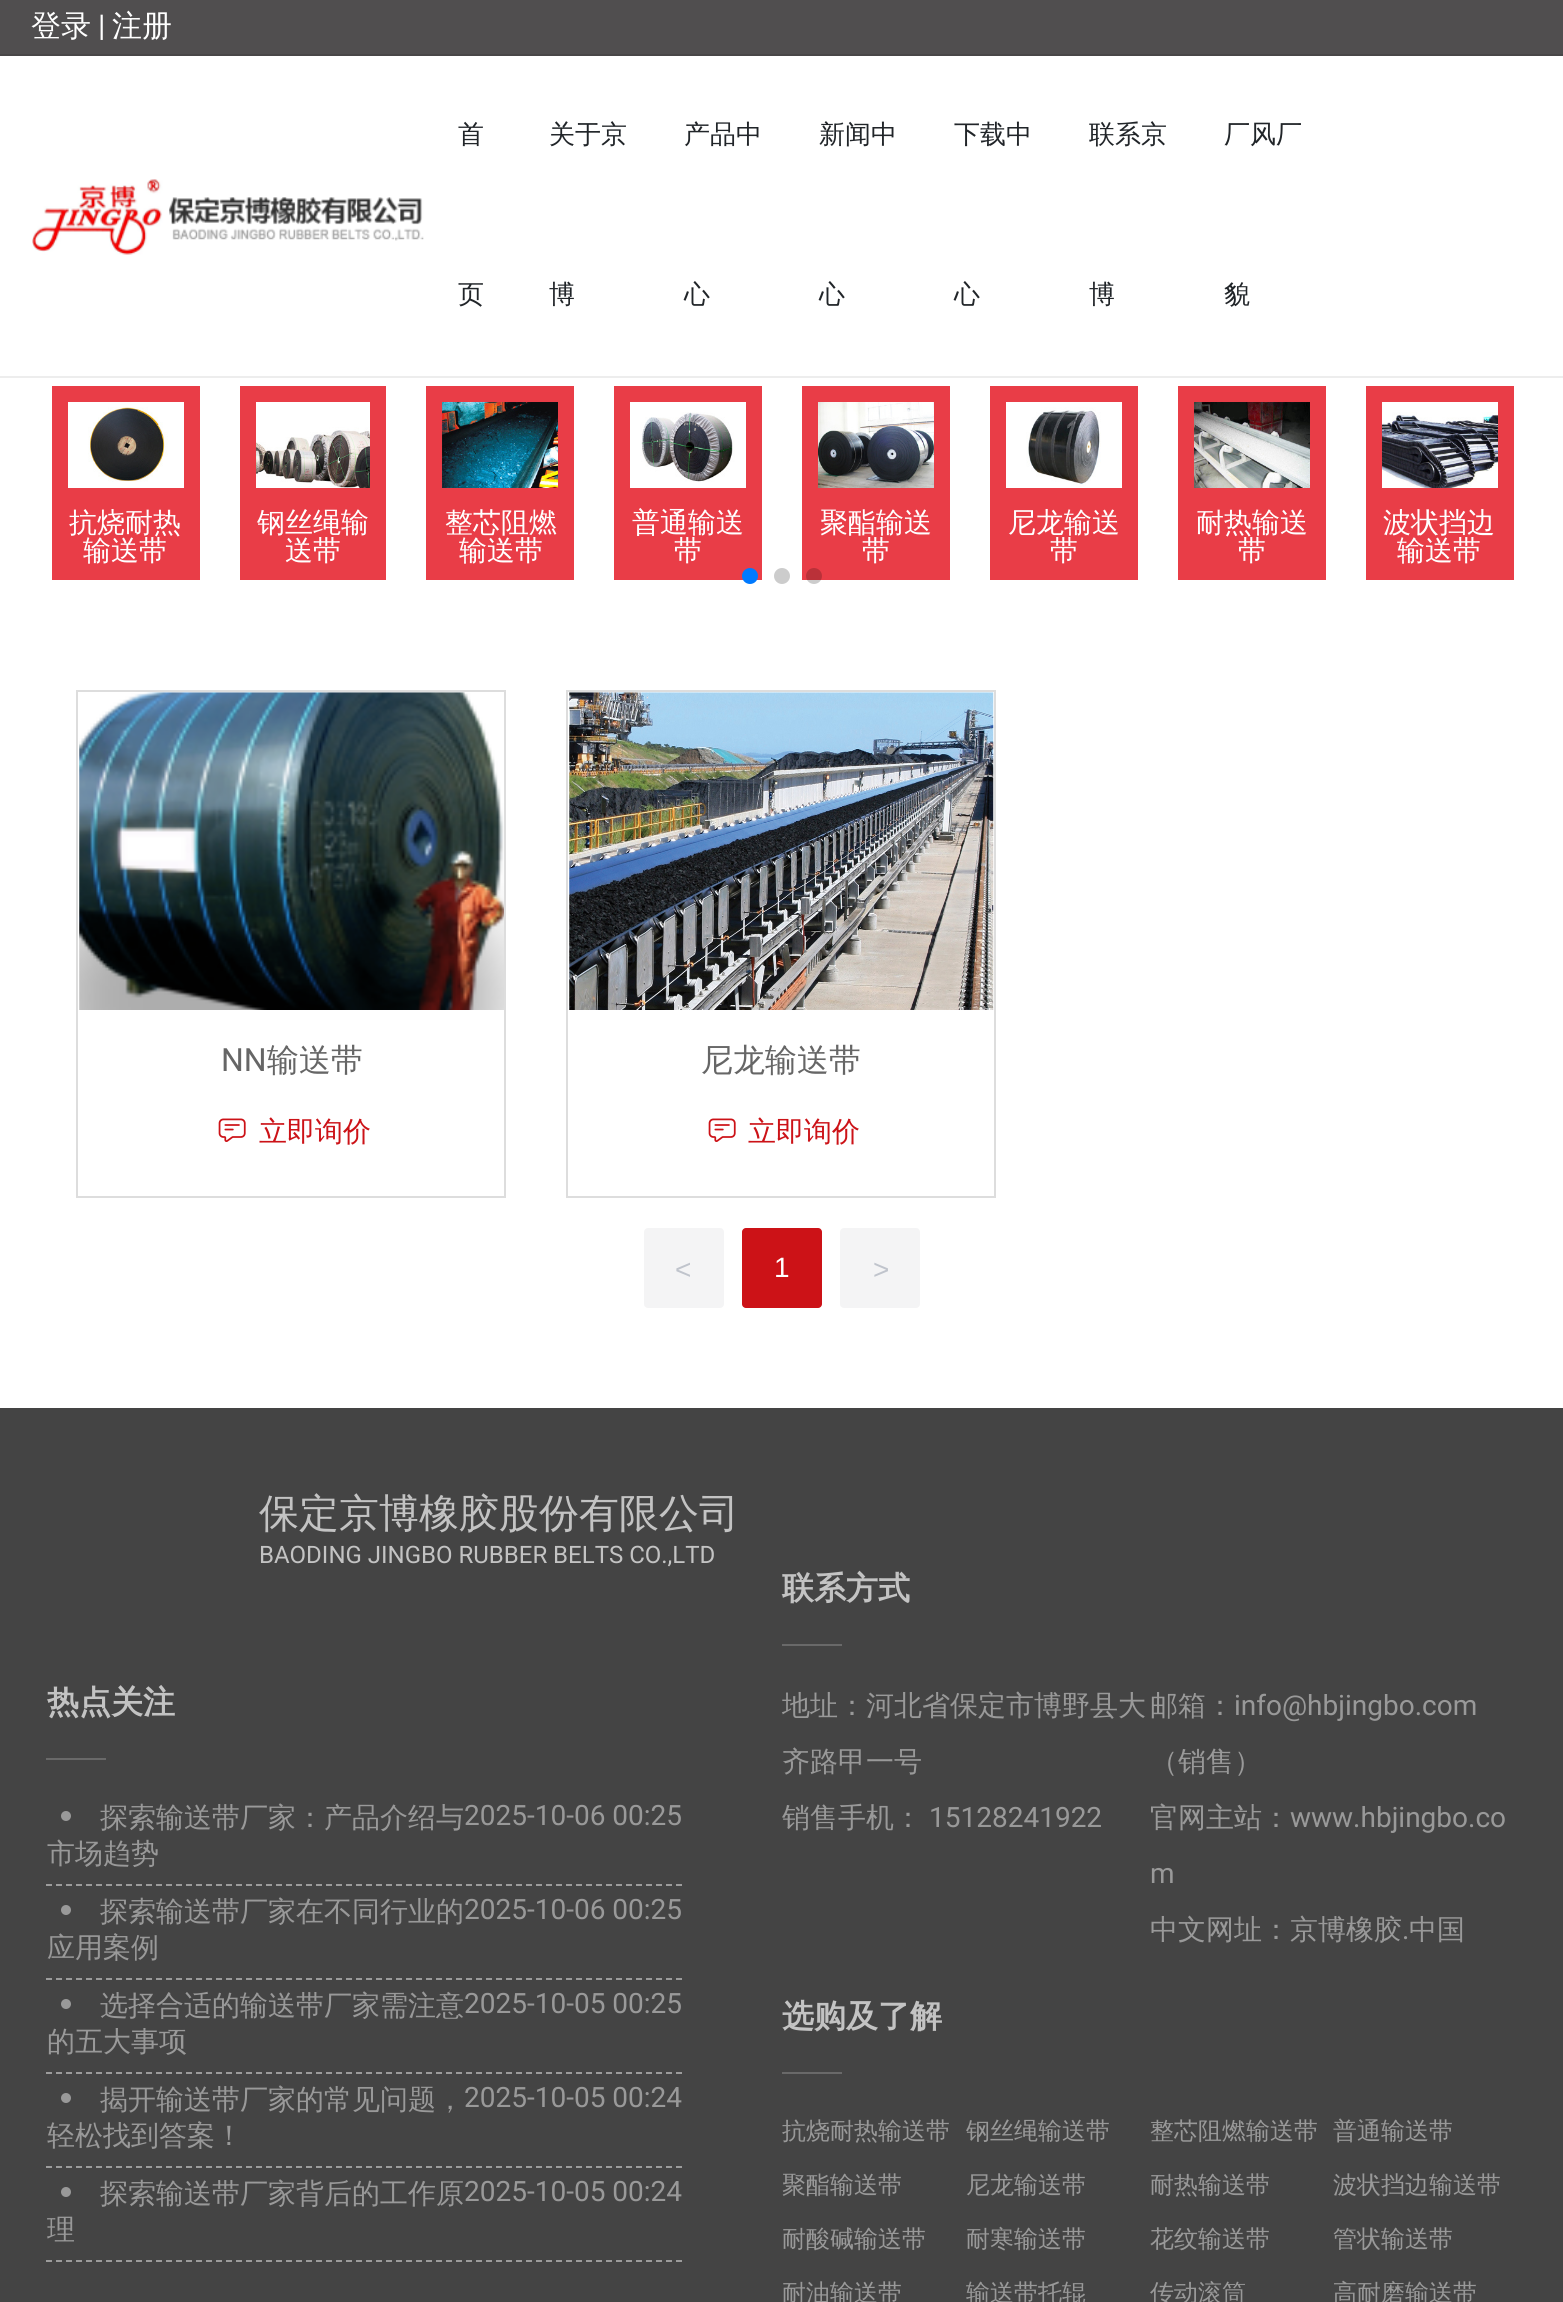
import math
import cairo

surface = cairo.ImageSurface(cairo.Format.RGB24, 1563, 2302)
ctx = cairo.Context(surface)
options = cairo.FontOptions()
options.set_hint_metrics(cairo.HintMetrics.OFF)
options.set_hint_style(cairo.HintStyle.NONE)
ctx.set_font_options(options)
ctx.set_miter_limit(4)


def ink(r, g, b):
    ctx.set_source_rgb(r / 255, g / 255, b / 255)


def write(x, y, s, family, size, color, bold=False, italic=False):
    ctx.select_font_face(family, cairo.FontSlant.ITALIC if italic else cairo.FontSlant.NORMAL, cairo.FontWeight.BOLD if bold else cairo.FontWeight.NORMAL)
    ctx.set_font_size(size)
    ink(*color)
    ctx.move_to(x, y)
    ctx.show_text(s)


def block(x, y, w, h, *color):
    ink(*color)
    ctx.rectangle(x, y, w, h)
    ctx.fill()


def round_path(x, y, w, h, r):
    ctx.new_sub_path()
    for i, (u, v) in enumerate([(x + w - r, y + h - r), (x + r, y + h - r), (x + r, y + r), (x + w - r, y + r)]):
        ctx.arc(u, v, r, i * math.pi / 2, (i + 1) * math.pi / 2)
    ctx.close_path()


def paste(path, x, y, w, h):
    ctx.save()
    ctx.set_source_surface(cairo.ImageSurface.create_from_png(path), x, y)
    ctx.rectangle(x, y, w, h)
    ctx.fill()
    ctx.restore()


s1 = dict(family="WenQuanYi Zen Hei Medium", size=30, color=(255, 255, 255))
s2 = dict(family="Roboto", size=30, color=(255, 255, 255))
s3 = dict(family="WenQuanYi Zen Hei Medium", size=26, color=(33, 37, 41))
s4 = dict(family="WenQuanYi Zen Hei Medium", size=28, color=(255, 255, 255))
s5 = dict(family="Roboto", size=32, color=(102, 102, 102))
s6 = dict(family="WenQuanYi Zen Hei Medium", size=32, color=(102, 102, 102))
s7 = dict(family="WenQuanYi Zen Hei Medium", size=28, color=(204, 18, 23))
s8 = dict(family="Liberation Sans", size=28, color=(192, 196, 204))
s9 = dict(family="Liberation Sans", size=28, color=(255, 255, 255))
s10 = dict(family="WenQuanYi Zen Hei Medium", size=40, color=(195, 195, 195))
s11 = dict(family="Roboto", size=24, color=(195, 195, 195))
s12 = dict(family="WenQuanYi Zen Hei", size=32, color=(195, 195, 195), bold=True)
s13 = dict(family="WenQuanYi Zen Hei Medium", size=28, color=(153, 153, 153))
s14 = dict(family="Roboto", size=28, color=(153, 153, 153))
s15 = dict(family="WenQuanYi Zen Hei Medium", size=24, color=(153, 153, 153))

ink(255, 255, 255)
ctx.paint()
block(0, 376, 1563, 2, 237, 237, 237)
block(0, 0, 1563, 54, 80, 78, 79)
block(0, 54, 1563, 2, 72, 70, 71)
write(31, 36, "登录", **s1)
write(98, 36, "|", **s2)
write(112, 36, "注册", **s1)
paste("pic1.png", 32, 179, 392, 76)
write(458, 143, "首", **s3)
write(458, 303, "页", **s3)
write(549, 143, "关于京", **s3)
write(549, 303, "博", **s3)
write(684, 143, "产品中", **s3)
write(684, 303, "心", **s3)
write(819, 143, "新闻中", **s3)
write(819, 303, "心", **s3)
write(954, 143, "下载中", **s3)
write(954, 303, "心", **s3)
write(1089, 143, "联系京", **s3)
write(1089, 303, "博", **s3)
write(1224, 143, "厂风厂", **s3)
write(1224, 303, "貌", **s3)
block(52, 386, 148, 194, 233, 61, 71)
paste("pic2.png", 68, 402, 116, 86)
write(69, 532, "抗烧耐热", **s4)
write(83, 560, "输送带", **s4)
block(240, 386, 146, 194, 233, 61, 71)
paste("pic3.png", 256, 402, 114, 86)
write(257, 532, "钢丝绳输", **s4)
write(285, 560, "送带", **s4)
block(426, 386, 148, 194, 233, 61, 71)
paste("pic4.png", 442, 402, 116, 86)
write(445, 532, "整芯阻燃", **s4)
write(459, 560, "输送带", **s4)
block(614, 386, 148, 194, 233, 61, 71)
paste("pic5.png", 630, 402, 116, 86)
write(632, 532, "普通输送", **s4)
write(674, 560, "带", **s4)
block(802, 386, 148, 194, 233, 61, 71)
paste("pic6.png", 818, 402, 116, 86)
write(820, 532, "聚酯输送", **s4)
write(862, 560, "带", **s4)
block(990, 386, 148, 194, 233, 61, 71)
paste("pic7.png", 1006, 402, 116, 86)
write(1008, 532, "尼龙输送", **s4)
write(1050, 560, "带", **s4)
block(1178, 386, 148, 194, 233, 61, 71)
paste("pic8.png", 1194, 402, 116, 86)
write(1196, 532, "耐热输送", **s4)
write(1238, 560, "带", **s4)
block(1366, 386, 148, 194, 233, 61, 71)
paste("pic9.png", 1382, 402, 116, 86)
write(1383, 532, "波状挡边", **s4)
write(1397, 560, "输送带", **s4)
ink(0, 122, 255)
ctx.new_path()
ctx.arc(750, 576, 8, 0, 2 * math.pi)
ctx.fill()
ink(204, 204, 204)
ctx.arc(782, 576, 8, 0, 2 * math.pi)
ctx.fill()
ctx.set_source_rgba(0, 0, 0, 0.2)
ctx.arc(814, 576, 8, 0, 2 * math.pi)
ctx.fill()
ctx.rectangle(77, 691, 428, 506)
ink(221, 221, 221)
ctx.stroke()
paste("pic10.png", 79, 692, 425, 318)
write(221, 1071, "NN", **s5)
write(267, 1071, "输送带", **s6)
paste("pic11.png", 218, 1118, 28, 24)
write(259, 1141, "立即询价", **s7)
ctx.rectangle(567, 691, 428, 506)
ink(221, 221, 221)
ctx.stroke()
paste("pic12.png", 569, 692, 425, 318)
write(701, 1071, "尼龙输送带", **s6)
paste("pic11.png", 708, 1118, 28, 24)
write(748, 1141, "立即询价", **s7)
ink(244, 244, 245)
round_path(644, 1228, 80, 80, 4)
ctx.fill()
write(675, 1279, "<", **s8)
ink(204, 18, 23)
round_path(742, 1228, 80, 80, 4)
ctx.fill()
write(774, 1277, "1", **s9)
ink(244, 244, 245)
round_path(840, 1228, 80, 80, 4)
ctx.fill()
write(873, 1279, ">", **s8)
block(0, 1408, 1563, 894, 68, 68, 68)
write(259, 1527, "保定京博橡胶股份有限公司", **s10)
write(259, 1563, "BAODING JINGBO RUBBER BELTS CO.,LTD", **s11)
write(47, 1713, "热点关注", **s12)
block(46, 1758, 60, 2, 105, 105, 105)
ctx.new_path()
ctx.move_to(46, 1885)
ctx.line_to(682, 1885)
ink(156, 156, 156)
ctx.set_dash([6, 4])
ctx.stroke()
paste("pic13.png", 61, 1811, 10, 10)
write(100, 1827, "探索输送带厂家：产品介绍与", **s13)
write(47, 1863, "市场趋势", **s13)
write(464, 1825, "2025-10-06 00:25", **s14)
ctx.new_path()
ctx.move_to(46, 1979)
ctx.line_to(682, 1979)
ink(156, 156, 156)
ctx.stroke()
paste("pic13.png", 61, 1905, 10, 10)
write(100, 1921, "探索输送带厂家在不同行业的", **s13)
write(47, 1957, "应用案例", **s13)
write(464, 1919, "2025-10-06 00:25", **s14)
ctx.new_path()
ctx.move_to(46, 2073)
ctx.line_to(682, 2073)
ink(156, 156, 156)
ctx.stroke()
paste("pic13.png", 61, 1999, 10, 10)
write(100, 2015, "选择合适的输送带厂家需注意", **s13)
write(47, 2051, "的五大事项", **s13)
write(464, 2013, "2025-10-05 00:25", **s14)
ctx.new_path()
ctx.move_to(46, 2167)
ctx.line_to(682, 2167)
ink(156, 156, 156)
ctx.stroke()
paste("pic13.png", 61, 2093, 10, 10)
write(100, 2109, "揭开输送带厂家的常见问题，", **s13)
write(47, 2145, "轻松找到答案！", **s13)
write(464, 2107, "2025-10-05 00:24", **s14)
ctx.new_path()
ctx.move_to(46, 2261)
ctx.line_to(682, 2261)
ink(156, 156, 156)
ctx.stroke()
paste("pic13.png", 61, 2187, 10, 10)
write(100, 2203, "探索输送带厂家背后的工作原", **s13)
write(47, 2239, "理", **s13)
write(464, 2201, "2025-10-05 00:24", **s14)
write(782, 1599, "联系方式", **s12)
block(782, 1644, 60, 2, 105, 105, 105)
write(782, 1715, "地址：河北省保定市博野县大", **s13)
write(782, 1771, "齐路甲一号", **s13)
write(782, 1827, "销售手机：", **s13)
write(929, 1827, "15128241922", **s14)
write(1150, 1715, "邮箱：", **s13)
write(1234, 1715, "info@hbjingbo.com", **s14)
write(1150, 1771, "（销售）", **s13)
write(1150, 1827, "官网主站：", **s13)
write(1290, 1827, "www.hbjingbo.co", **s14)
write(1150, 1883, "m", **s14)
write(1150, 1939, "中文网址：京博橡胶", **s13)
write(1402, 1939, ".", **s14)
write(1409, 1939, "中国", **s13)
write(782, 2027, "选购及了解", **s12)
block(782, 2072, 60, 2, 105, 105, 105)
write(782, 2139, "抗烧耐热输送带", **s15)
write(966, 2139, "钢丝绳输送带", **s15)
write(1150, 2139, "整芯阻燃输送带", **s15)
write(1333, 2139, "普通输送带", **s15)
write(782, 2193, "聚酯输送带", **s15)
write(966, 2193, "尼龙输送带", **s15)
write(1150, 2193, "耐热输送带", **s15)
write(1333, 2193, "波状挡边输送带", **s15)
write(782, 2247, "耐酸碱输送带", **s15)
write(966, 2247, "耐寒输送带", **s15)
write(1150, 2247, "花纹输送带", **s15)
write(1333, 2247, "管状输送带", **s15)
write(782, 2301, "耐油输送带", **s15)
write(966, 2301, "输送带托辊", **s15)
write(1150, 2301, "传动滚筒", **s15)
write(1333, 2301, "高耐磨输送带", **s15)
surface.write_to_png("screenshot.png")
